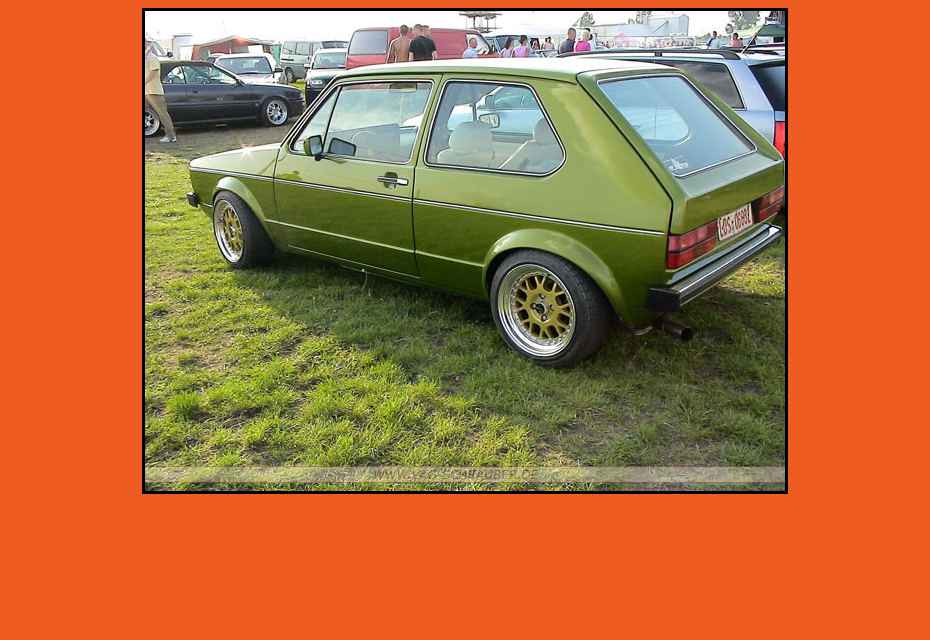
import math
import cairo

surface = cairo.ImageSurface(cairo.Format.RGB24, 930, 640)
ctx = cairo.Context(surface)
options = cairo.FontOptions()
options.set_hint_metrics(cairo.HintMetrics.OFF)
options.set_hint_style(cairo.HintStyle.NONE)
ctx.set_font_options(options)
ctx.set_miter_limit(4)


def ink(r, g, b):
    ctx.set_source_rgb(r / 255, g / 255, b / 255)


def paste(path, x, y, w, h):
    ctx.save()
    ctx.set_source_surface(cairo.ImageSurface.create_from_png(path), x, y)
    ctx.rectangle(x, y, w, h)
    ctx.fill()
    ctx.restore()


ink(238, 92, 33)
ctx.paint()
ctx.rectangle(143.5, 9.5, 643, 483)
ink(0, 0, 0)
ctx.set_line_width(3)
ctx.stroke()
paste("pic1.png", 145, 11, 640, 480)
surface.write_to_png("screenshot.png")
